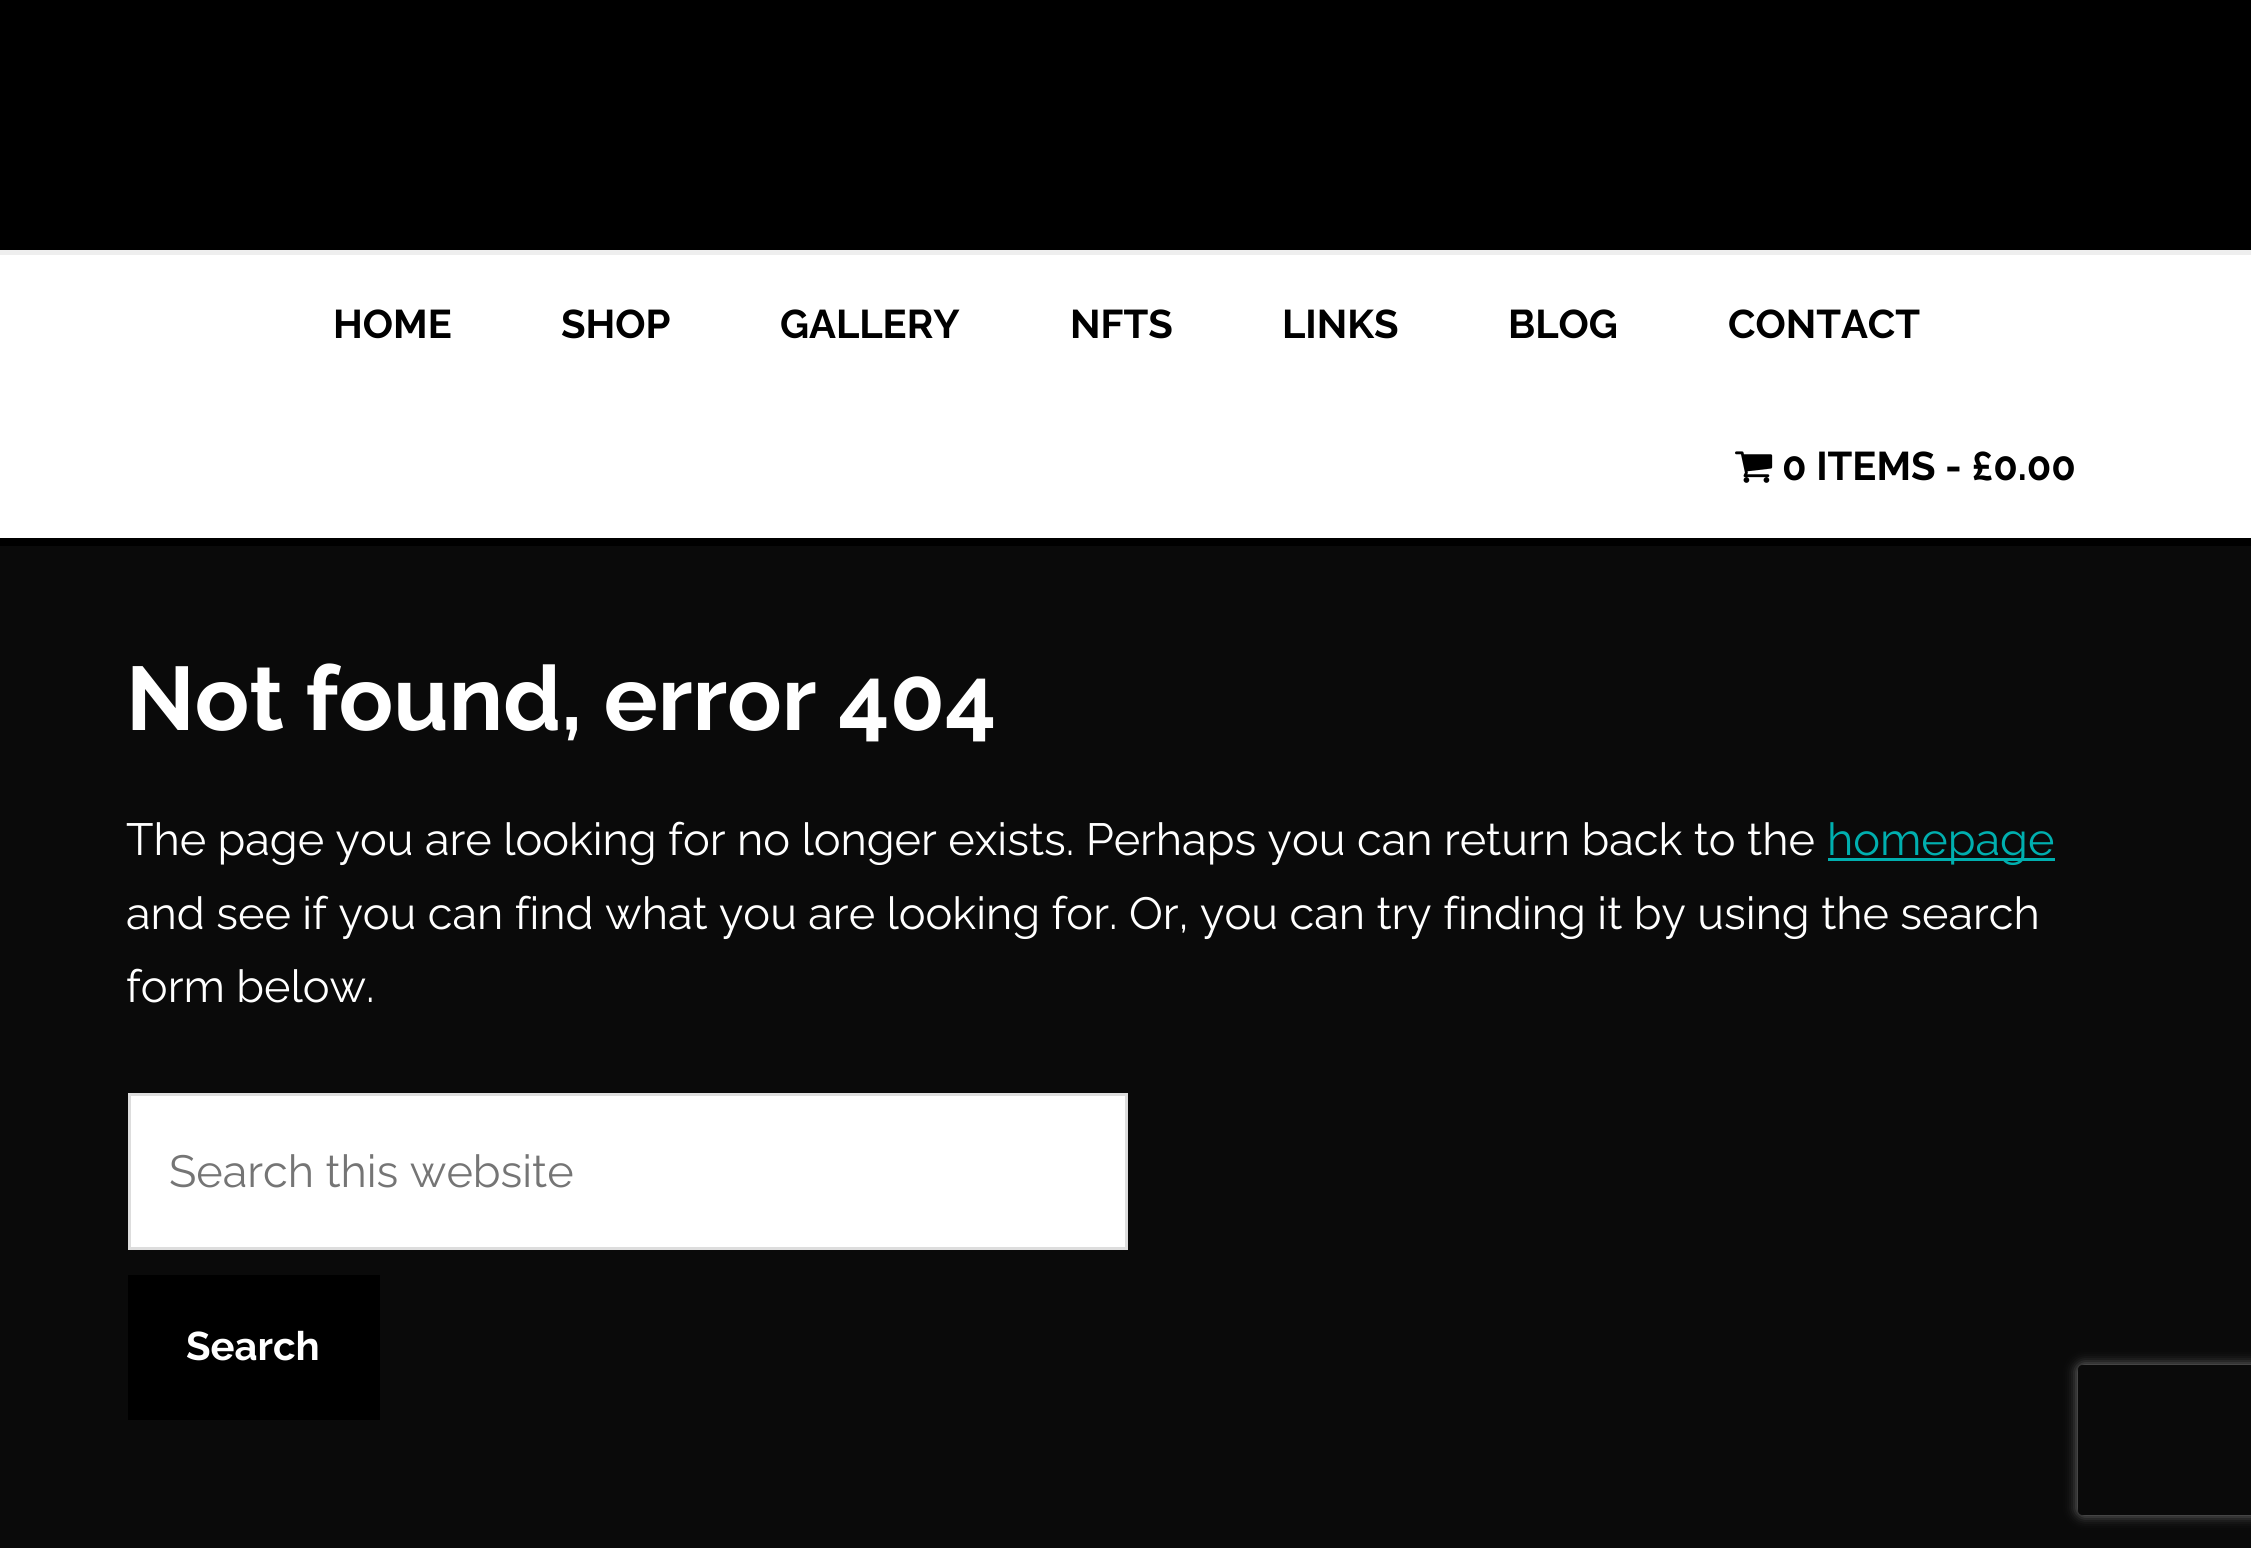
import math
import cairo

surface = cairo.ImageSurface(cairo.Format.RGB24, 2251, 1548)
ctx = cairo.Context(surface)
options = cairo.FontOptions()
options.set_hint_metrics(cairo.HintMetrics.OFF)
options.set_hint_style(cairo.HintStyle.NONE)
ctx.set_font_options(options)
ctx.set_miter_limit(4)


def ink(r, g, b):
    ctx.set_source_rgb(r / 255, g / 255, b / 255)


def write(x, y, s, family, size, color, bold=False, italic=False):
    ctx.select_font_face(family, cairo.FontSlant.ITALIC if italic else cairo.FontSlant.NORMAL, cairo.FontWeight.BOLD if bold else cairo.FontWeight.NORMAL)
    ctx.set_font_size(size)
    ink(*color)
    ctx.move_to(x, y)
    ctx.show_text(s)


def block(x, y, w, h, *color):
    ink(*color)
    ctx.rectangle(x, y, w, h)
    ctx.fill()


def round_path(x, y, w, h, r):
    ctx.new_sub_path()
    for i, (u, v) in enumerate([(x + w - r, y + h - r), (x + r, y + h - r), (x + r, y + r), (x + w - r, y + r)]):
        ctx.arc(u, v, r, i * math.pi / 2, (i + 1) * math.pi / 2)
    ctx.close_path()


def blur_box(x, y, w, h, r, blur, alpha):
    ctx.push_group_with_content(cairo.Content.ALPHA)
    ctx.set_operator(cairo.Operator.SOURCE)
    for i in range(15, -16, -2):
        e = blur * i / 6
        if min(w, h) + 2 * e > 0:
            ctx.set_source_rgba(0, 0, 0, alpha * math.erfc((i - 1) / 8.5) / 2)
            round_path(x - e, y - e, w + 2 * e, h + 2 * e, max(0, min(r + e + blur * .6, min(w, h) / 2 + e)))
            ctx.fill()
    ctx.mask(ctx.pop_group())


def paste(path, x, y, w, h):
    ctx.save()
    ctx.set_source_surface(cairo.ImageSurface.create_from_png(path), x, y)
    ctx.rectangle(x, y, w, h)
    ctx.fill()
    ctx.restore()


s1 = dict(family="Raleway", size=40, color=(0, 0, 0), bold=True)
s2 = dict(family="Raleway", size=90, color=(255, 255, 255), bold=True)
s3 = dict(family="Raleway", size=45, color=(255, 255, 255))
s4 = dict(family="Raleway", size=45, color=(0, 175, 175))
s5 = dict(family="Raleway", size=45, color=(117, 117, 117))
s6 = dict(family="Raleway", size=40, color=(255, 255, 255), bold=True)

ink(10, 10, 10)
ctx.paint()
block(0, 0, 2251, 250, 0, 0, 0)
block(0, 250, 2251, 5, 238, 238, 238)
block(0, 255, 2251, 283, 255, 255, 255)
block(0, 538, 2251, 8, 0, 0, 0)
write(333, 338, "HOME", **s1)
write(561, 338, "SHOP", **s1)
write(780, 338, "GALLERY", **s1)
write(1070, 338, "NFTS", **s1)
write(1282, 338, "LINKS", **s1)
write(1508, 338, "BLOG", **s1)
write(1728, 338, "CONTACT", **s1)
paste("pic1.png", 1735, 451, 38, 32)
write(1782, 480, "0 ITEMS - £0.00", **s1)
write(126, 730, "Not found, error 404", **s2)
write(126, 855, "The page you are looking for no longer exists. Perhaps you can return back to the", **s3)
block(1828, 858, 227, 3, 0, 175, 175)
write(1827, 855, "homepage", **s4)
write(126, 929, "and see if you can find what you are looking for. Or, you can try finding it by using the search", **s3)
write(126, 1002, "form below.", **s3)
ctx.rectangle(129.5, 1094.5, 997, 154)
ctx.fill_preserve()
ink(221, 221, 221)
ctx.set_line_width(3)
ctx.stroke()
write(169, 1187, "Search this website", **s5)
block(128, 1275, 252, 145, 0, 0, 0)
write(186, 1360, "Search", **s6)
ctx.save()
ctx.set_fill_rule(cairo.FillRule.EVEN_ODD)
ctx.new_path()
ctx.move_to(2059, 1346)
ctx.line_to(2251, 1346)
ctx.line_to(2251, 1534)
ctx.line_to(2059, 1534)
ctx.close_path()
ctx.move_to(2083, 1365)
ctx.line_to(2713, 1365)
ctx.curve_to(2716, 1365, 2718, 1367, 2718, 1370)
ctx.line_to(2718, 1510)
ctx.curve_to(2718, 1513, 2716, 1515, 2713, 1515)
ctx.line_to(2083, 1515)
ctx.curve_to(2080, 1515, 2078, 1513, 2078, 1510)
ctx.line_to(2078, 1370)
ctx.curve_to(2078, 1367, 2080, 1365, 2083, 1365)
ctx.close_path()
ctx.clip()
ink(128, 128, 128)
blur_box(2078, 1365, 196, 150, 5, 6, 1)
ctx.restore()
surface.write_to_png("screenshot.png")
